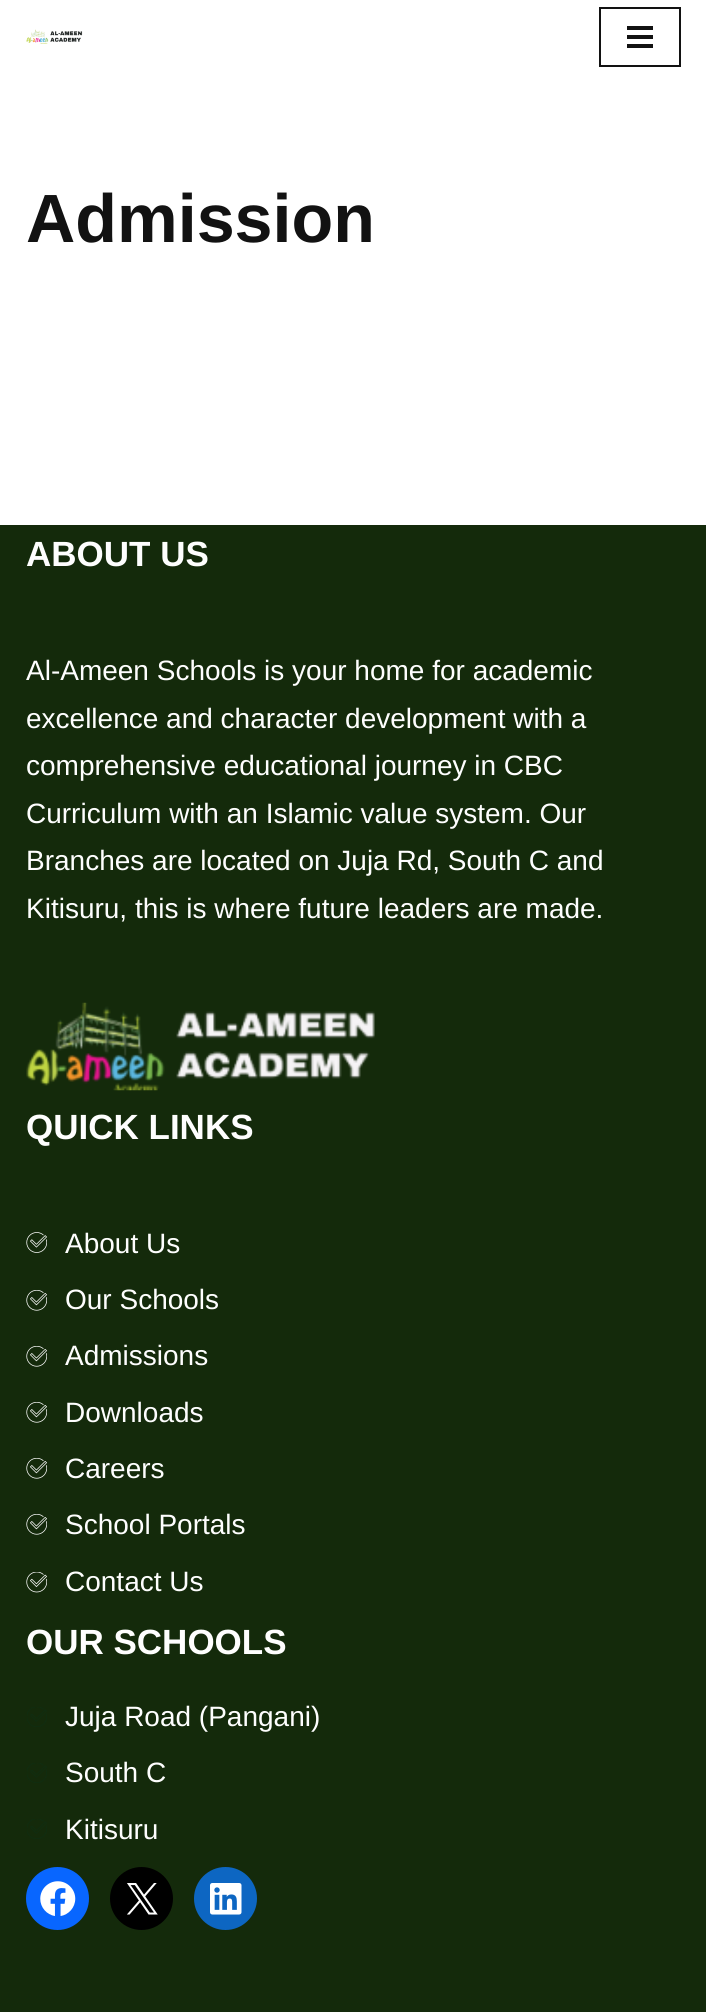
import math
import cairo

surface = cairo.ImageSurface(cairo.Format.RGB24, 706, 2012)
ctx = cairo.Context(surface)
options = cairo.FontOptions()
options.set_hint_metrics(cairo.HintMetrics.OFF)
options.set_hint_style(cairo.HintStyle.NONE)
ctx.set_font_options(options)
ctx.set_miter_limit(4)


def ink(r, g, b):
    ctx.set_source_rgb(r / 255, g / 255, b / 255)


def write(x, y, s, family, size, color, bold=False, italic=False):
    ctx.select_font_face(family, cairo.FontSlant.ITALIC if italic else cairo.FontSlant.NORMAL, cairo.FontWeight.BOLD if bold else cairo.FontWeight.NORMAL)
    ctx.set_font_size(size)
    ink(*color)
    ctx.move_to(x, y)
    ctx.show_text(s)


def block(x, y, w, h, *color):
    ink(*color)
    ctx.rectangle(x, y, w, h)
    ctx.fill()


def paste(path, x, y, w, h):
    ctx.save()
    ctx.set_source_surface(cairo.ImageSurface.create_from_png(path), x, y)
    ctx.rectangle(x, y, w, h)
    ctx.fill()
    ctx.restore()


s1 = dict(family="Liberation Sans", size=68.25, color=(18, 18, 18), bold=True)
s2 = dict(family="Liberation Sans", size=35, color=(254, 254, 254), bold=True)
s3 = dict(family="Liberation Sans", size=28, color=(254, 254, 254))

ink(255, 255, 255)
ctx.paint()
paste("pic1.png", 26, 29, 57, 15)
ctx.rectangle(600, 8, 80, 58)
ink(18, 18, 18)
ctx.stroke()
block(627, 26, 26, 4, 18, 18, 18)
block(627, 35, 26, 4, 18, 18, 18)
block(627, 44, 26, 4, 18, 18, 18)
write(26, 242, "Admission", **s1)
block(0, 525, 706, 1487, 20, 42, 11)
write(26, 566, "ABOUT US", **s2)
write(26, 680, "Al-Ameen Schools is your home for academic", **s3)
write(26, 728, "excellence and character development with a", **s3)
write(26, 775, "comprehensive educational journey in CBC", **s3)
write(26, 823, "Curriculum with an Islamic value system. Our", **s3)
write(26, 870, "Branches are located on Juja Rd, South C and", **s3)
write(26, 918, "Kitisuru, this is where future leaders are made.", **s3)
paste("pic2.png", 26, 1002, 349, 89)
write(26, 1139, "QUICK LINKS", **s2)
paste("pic3.png", 26, 1232, 21, 21)
write(65, 1253, "About Us", **s3)
paste("pic4.png", 26, 1290, 21, 21)
write(65, 1309, "Our Schools", **s3)
paste("pic4.png", 26, 1346, 21, 21)
write(65, 1365, "Admissions", **s3)
paste("pic4.png", 26, 1402, 21, 21)
write(65, 1422, "Downloads", **s3)
paste("pic4.png", 26, 1458, 21, 21)
write(65, 1478, "Careers", **s3)
paste("pic4.png", 26, 1514, 21, 21)
write(65, 1534, "School Portals", **s3)
paste("pic5.png", 26, 1572, 21, 21)
write(65, 1591, "Contact Us", **s3)
write(26, 1654, "OUR SCHOOLS", **s2)
paste("pic6.png", 27, 1707, 20, 20)
write(65, 1726, "Juja Road (Pangani)", **s3)
paste("pic6.png", 27, 1763, 20, 20)
write(65, 1782, "South C", **s3)
paste("pic6.png", 27, 1819, 20, 20)
write(65, 1839, "Kitisuru", **s3)
ink(8, 102, 255)
ctx.new_path()
ctx.arc(57.5, 1898.5, 31.5, 0, 2 * math.pi)
ctx.fill()
paste("pic7.png", 40, 1881, 36, 35)
ink(0, 0, 0)
ctx.arc(141.5, 1898.5, 31.5, 0, 2 * math.pi)
ctx.fill()
paste("pic8.png", 127, 1883, 31, 32)
ink(13, 102, 194)
ctx.arc(225.5, 1898.5, 31.5, 0, 2 * math.pi)
ctx.fill()
paste("pic9.png", 210, 1883, 32, 32)
surface.write_to_png("screenshot.png")
